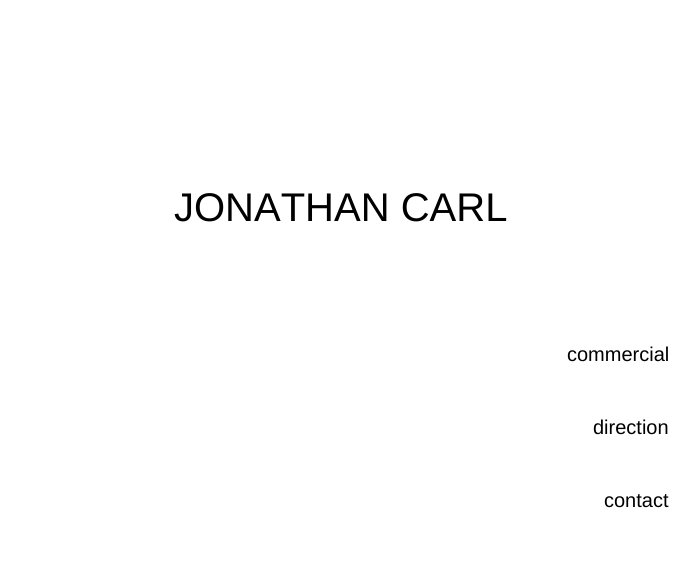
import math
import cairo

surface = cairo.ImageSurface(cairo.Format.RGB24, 681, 563)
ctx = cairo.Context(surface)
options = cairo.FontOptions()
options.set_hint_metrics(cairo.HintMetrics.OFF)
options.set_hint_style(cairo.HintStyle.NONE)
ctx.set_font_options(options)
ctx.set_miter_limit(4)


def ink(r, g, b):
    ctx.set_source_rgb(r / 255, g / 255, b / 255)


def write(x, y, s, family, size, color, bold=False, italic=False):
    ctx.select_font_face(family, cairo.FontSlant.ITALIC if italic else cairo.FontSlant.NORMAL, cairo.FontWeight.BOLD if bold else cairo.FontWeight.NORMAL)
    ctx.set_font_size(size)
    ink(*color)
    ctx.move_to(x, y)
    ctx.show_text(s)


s1 = dict(family="Liberation Sans", size=40, color=(0, 0, 0))
s2 = dict(family="Liberation Sans", size=20, color=(0, 0, 0))

ink(255, 255, 255)
ctx.paint()
write(174, 221, "JONATHAN CARL", **s1)
write(567, 361, "commercial", **s2)
write(593, 434, "direction", **s2)
write(604, 507, "contact", **s2)
surface.write_to_png("screenshot.png")
